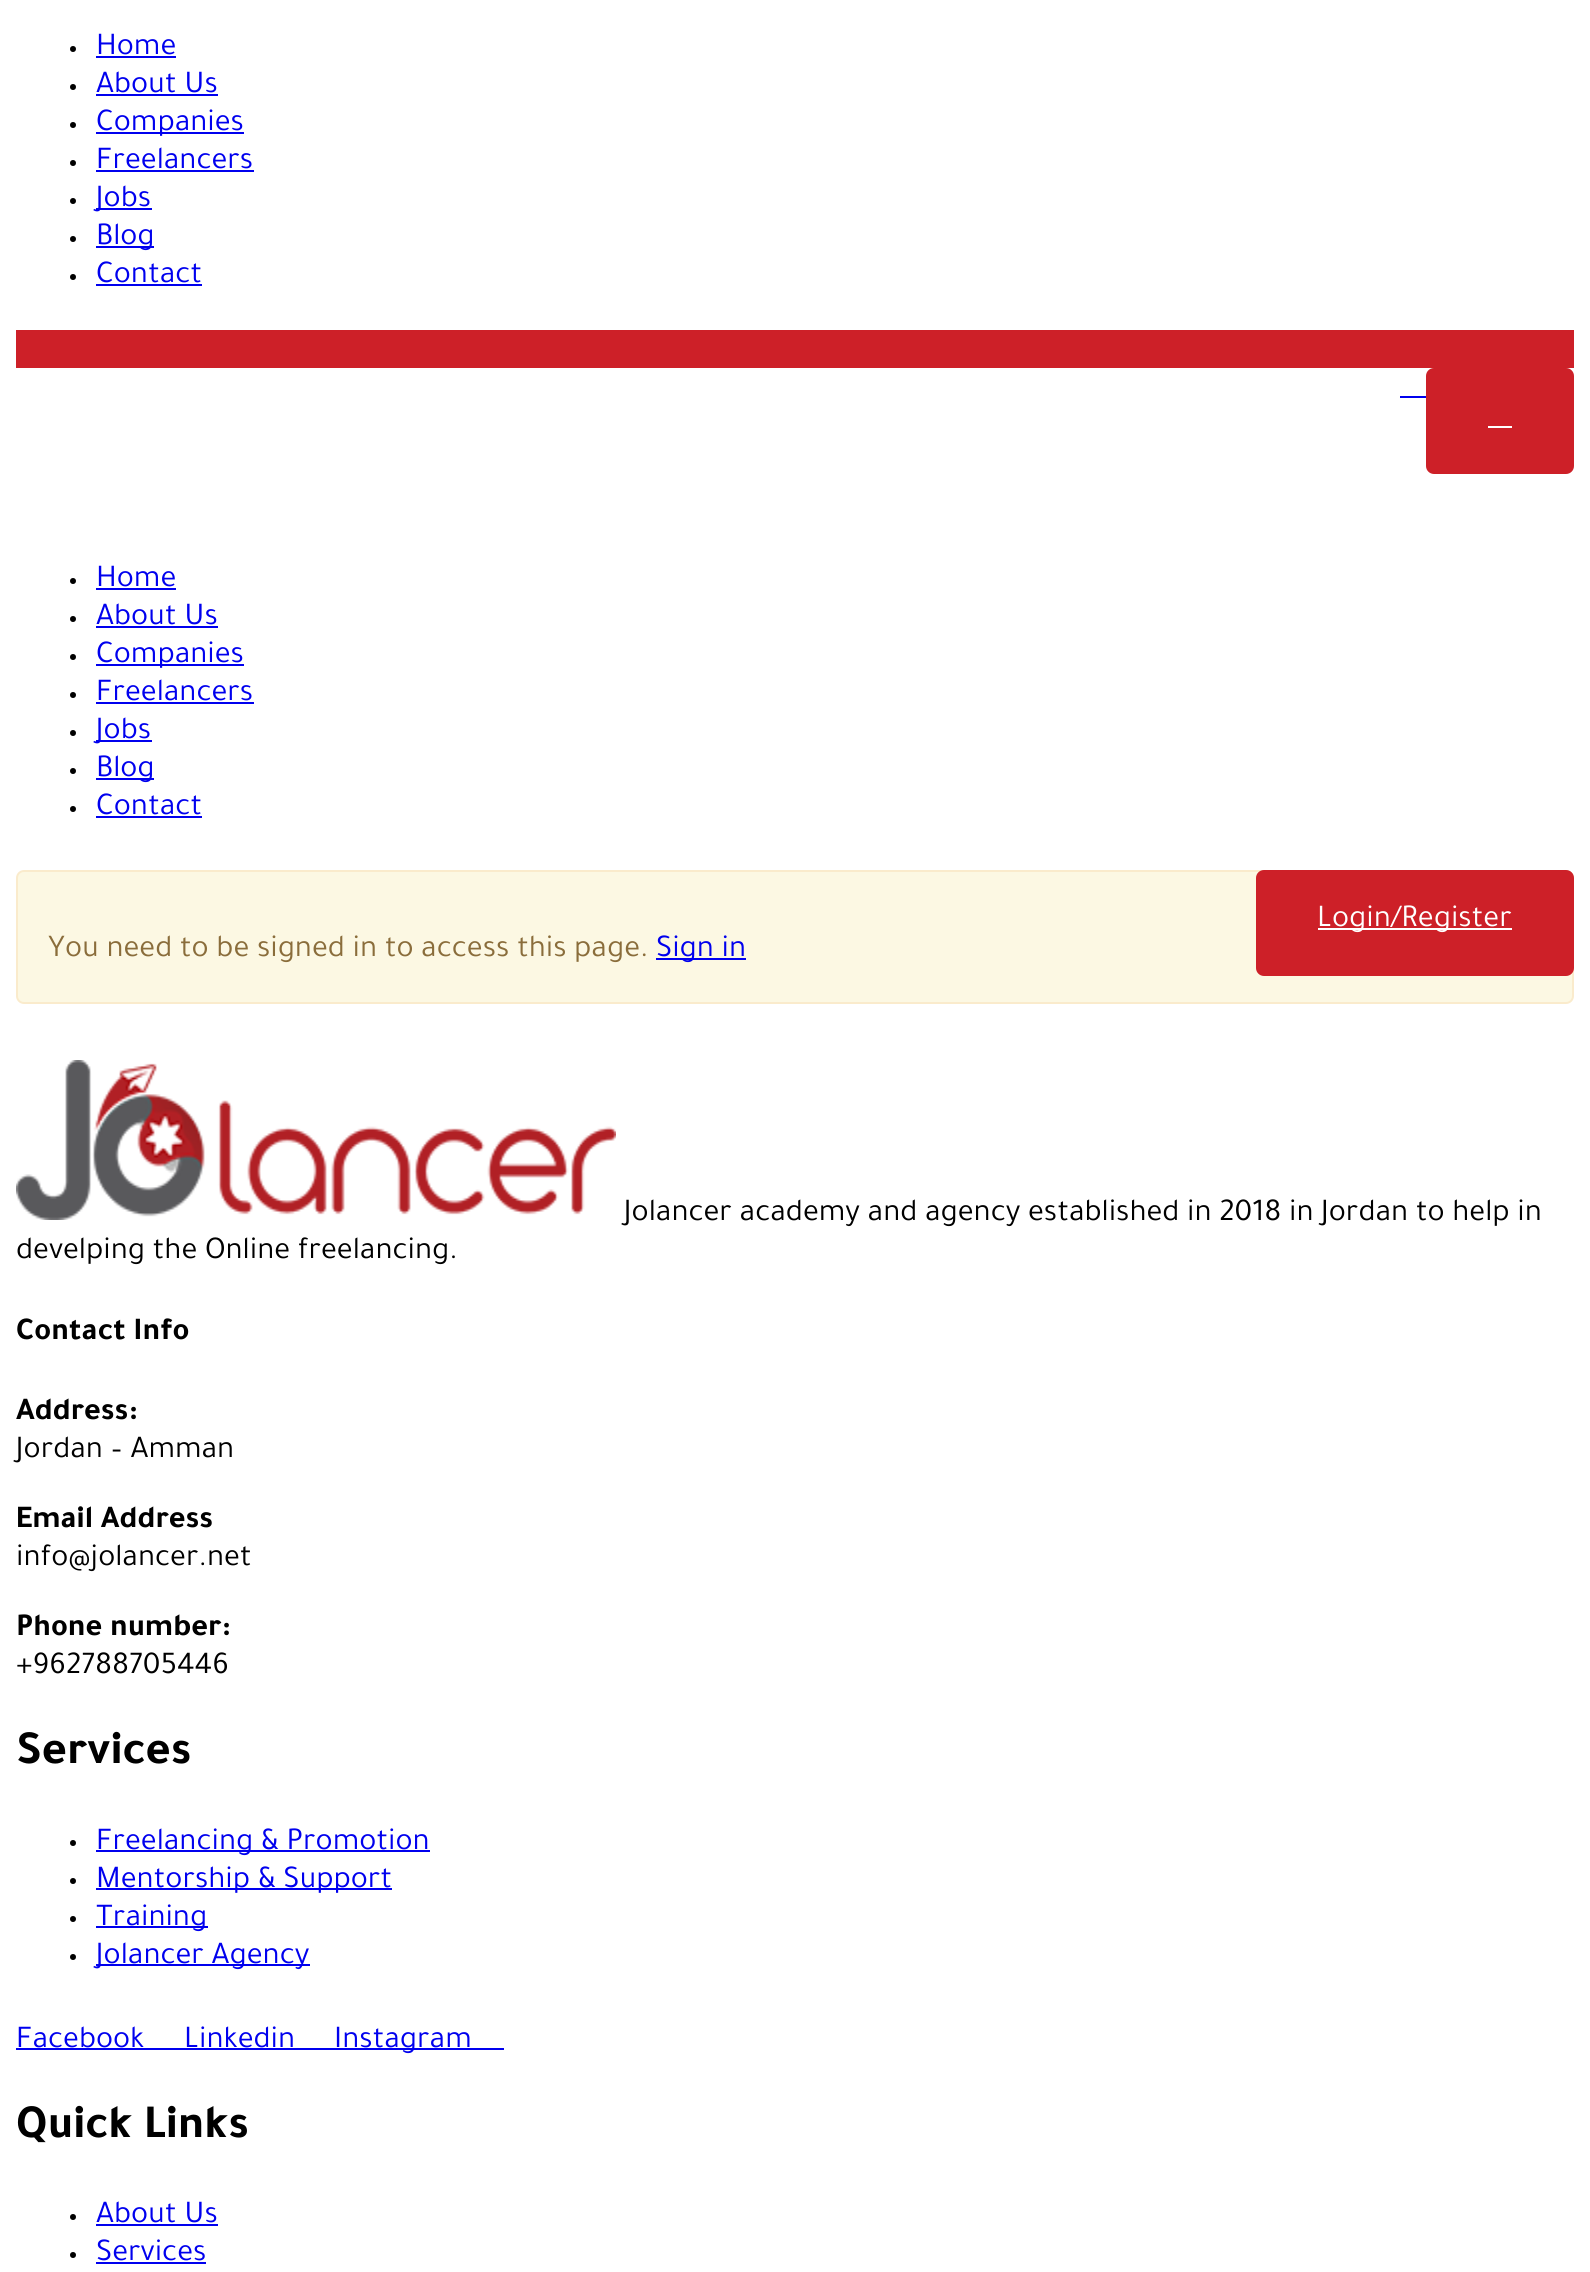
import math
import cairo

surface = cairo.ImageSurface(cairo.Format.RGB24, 1590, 2272)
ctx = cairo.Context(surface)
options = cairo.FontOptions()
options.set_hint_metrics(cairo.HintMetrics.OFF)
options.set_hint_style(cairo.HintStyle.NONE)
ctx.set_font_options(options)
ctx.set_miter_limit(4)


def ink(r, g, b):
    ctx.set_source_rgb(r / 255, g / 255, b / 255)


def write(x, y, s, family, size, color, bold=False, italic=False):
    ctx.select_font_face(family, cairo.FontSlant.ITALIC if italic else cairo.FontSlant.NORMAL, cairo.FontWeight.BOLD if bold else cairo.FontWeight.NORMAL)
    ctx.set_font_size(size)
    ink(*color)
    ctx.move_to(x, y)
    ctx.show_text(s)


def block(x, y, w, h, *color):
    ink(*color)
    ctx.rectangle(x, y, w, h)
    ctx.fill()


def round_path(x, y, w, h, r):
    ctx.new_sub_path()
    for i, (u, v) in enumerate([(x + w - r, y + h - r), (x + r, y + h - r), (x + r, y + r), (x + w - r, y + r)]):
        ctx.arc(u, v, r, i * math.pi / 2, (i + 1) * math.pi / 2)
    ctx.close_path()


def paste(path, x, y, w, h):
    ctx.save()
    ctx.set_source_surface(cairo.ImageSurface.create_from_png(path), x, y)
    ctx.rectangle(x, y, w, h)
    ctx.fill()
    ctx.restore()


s1 = dict(family="Tajawal", size=32, color=(0, 0, 238))
s2 = dict(family="Tajawal", size=32, color=(255, 255, 255))
s3 = dict(family="Tajawal", size=32, color=(138, 109, 59))
s4 = dict(family="Tajawal", size=32, color=(0, 0, 0))
s5 = dict(family="Tajawal", size=32, color=(0, 0, 0), bold=True)
s6 = dict(family="Tajawal", size=48, color=(0, 0, 0), bold=True)

ink(255, 255, 255)
ctx.paint()
ink(0, 0, 0)
ctx.arc(73, 49, 3, 0, 2 * math.pi)
ctx.fill()
write(96, 54, "Home", **s1)
block(96, 56, 80, 2, 0, 0, 238)
ink(0, 0, 0)
ctx.new_path()
ctx.arc(73, 87, 3, 0, 2 * math.pi)
ctx.fill()
write(96, 92, "About Us", **s1)
block(96, 94, 122, 2, 0, 0, 238)
ink(0, 0, 0)
ctx.new_path()
ctx.arc(73, 125, 3, 0, 2 * math.pi)
ctx.fill()
block(96, 132, 148, 2, 0, 0, 238)
write(96, 130, "Companies", **s1)
ink(0, 0, 0)
ctx.new_path()
ctx.arc(73, 163, 3, 0, 2 * math.pi)
ctx.fill()
write(96, 168, "Freelancers", **s1)
block(96, 170, 158, 2, 0, 0, 238)
ink(0, 0, 0)
ctx.new_path()
ctx.arc(73, 201, 3, 0, 2 * math.pi)
ctx.fill()
block(96, 208, 56, 2, 0, 0, 238)
write(96, 206, "Jobs", **s1)
ink(0, 0, 0)
ctx.new_path()
ctx.arc(73, 239, 3, 0, 2 * math.pi)
ctx.fill()
block(96, 246, 58, 2, 0, 0, 238)
write(96, 244, "Blog", **s1)
ink(0, 0, 0)
ctx.new_path()
ctx.arc(73, 277, 3, 0, 2 * math.pi)
ctx.fill()
write(96, 282, "Contact", **s1)
block(96, 284, 106, 2, 0, 0, 238)
block(16, 330, 1558, 38, 205, 32, 40)
block(1400, 396, 26, 2, 0, 0, 238)
ink(205, 32, 40)
round_path(1427, 369, 146, 104, 7)
ctx.fill_preserve()
ctx.stroke()
block(1488, 426, 24, 2, 255, 255, 255)
ink(0, 0, 0)
ctx.arc(73, 581, 3, 0, 2 * math.pi)
ctx.fill()
write(96, 586, "Home", **s1)
block(96, 588, 80, 2, 0, 0, 238)
ink(0, 0, 0)
ctx.new_path()
ctx.arc(73, 619, 3, 0, 2 * math.pi)
ctx.fill()
write(96, 624, "About Us", **s1)
block(96, 626, 122, 2, 0, 0, 238)
ink(0, 0, 0)
ctx.new_path()
ctx.arc(73, 657, 3, 0, 2 * math.pi)
ctx.fill()
block(96, 664, 148, 2, 0, 0, 238)
write(96, 662, "Companies", **s1)
ink(0, 0, 0)
ctx.new_path()
ctx.arc(73, 695, 3, 0, 2 * math.pi)
ctx.fill()
write(96, 700, "Freelancers", **s1)
block(96, 702, 158, 2, 0, 0, 238)
ink(0, 0, 0)
ctx.new_path()
ctx.arc(73, 733, 3, 0, 2 * math.pi)
ctx.fill()
block(96, 740, 56, 2, 0, 0, 238)
write(96, 738, "Jobs", **s1)
ink(0, 0, 0)
ctx.new_path()
ctx.arc(73, 771, 3, 0, 2 * math.pi)
ctx.fill()
block(96, 778, 58, 2, 0, 0, 238)
write(96, 776, "Blog", **s1)
ink(0, 0, 0)
ctx.new_path()
ctx.arc(73, 809, 3, 0, 2 * math.pi)
ctx.fill()
write(96, 814, "Contact", **s1)
block(96, 816, 106, 2, 0, 0, 238)
ink(252, 248, 227)
round_path(17, 871, 1556, 132, 7)
ctx.fill_preserve()
ink(250, 235, 204)
ctx.stroke()
ink(205, 32, 40)
round_path(1257, 871, 316, 104, 7)
ctx.fill_preserve()
ctx.stroke()
block(1318, 928, 194, 2, 255, 255, 255)
write(1317, 926, "Login/Register", **s2)
write(48, 956, "You need to be signed in to access this page.", **s3)
block(656, 958, 90, 2, 0, 0, 238)
write(656, 956, "Sign in", **s1)
paste("pic1.png", 16, 1060, 600, 160)
write(624, 1220, "Jolancer academy and agency established in 2018 in Jordan to help in", **s4)
write(16, 1258, "develping the Online freelancing.", **s4)
write(16, 1339, "Contact Info", **s5)
write(16, 1419, "Address:", **s5)
write(16, 1457, "Jordan – Amman", **s4)
write(16, 1527, "Email Address", **s5)
write(16, 1565, "info@jolancer.net", **s4)
write(16, 1635, "Phone number:", **s5)
write(16, 1673, "+962788705446", **s4)
write(16, 1763, "Services", **s6)
ctx.new_path()
ctx.arc(73, 1843, 3, 0, 2 * math.pi)
ctx.fill()
block(96, 1850, 334, 2, 0, 0, 238)
write(96, 1849, "Freelancing & Promotion", **s1)
ink(0, 0, 0)
ctx.new_path()
ctx.arc(73, 1881, 3, 0, 2 * math.pi)
ctx.fill()
block(96, 1888, 296, 2, 0, 0, 238)
write(96, 1887, "Mentorship & Support", **s1)
ink(0, 0, 0)
ctx.new_path()
ctx.arc(73, 1919, 3, 0, 2 * math.pi)
ctx.fill()
block(96, 1926, 112, 2, 0, 0, 238)
write(96, 1925, "Training", **s1)
ink(0, 0, 0)
ctx.new_path()
ctx.arc(73, 1957, 3, 0, 2 * math.pi)
ctx.fill()
block(96, 1964, 214, 2, 0, 0, 238)
write(96, 1963, "Jolancer Agency", **s1)
write(16, 2047, "Facebook", **s1)
block(16, 2048, 488, 2, 0, 0, 238)
write(184, 2047, "Linkedin", **s1)
write(334, 2047, "Instagram", **s1)
write(16, 2137, "Quick Links", **s6)
ctx.new_path()
ctx.arc(73, 2217, 3, 0, 2 * math.pi)
ctx.fill()
write(96, 2222, "About Us", **s1)
block(96, 2224, 122, 2, 0, 0, 238)
ink(0, 0, 0)
ctx.new_path()
ctx.arc(73, 2255, 3, 0, 2 * math.pi)
ctx.fill()
write(96, 2260, "Services", **s1)
block(96, 2262, 110, 2, 0, 0, 238)
surface.write_to_png("screenshot.png")
